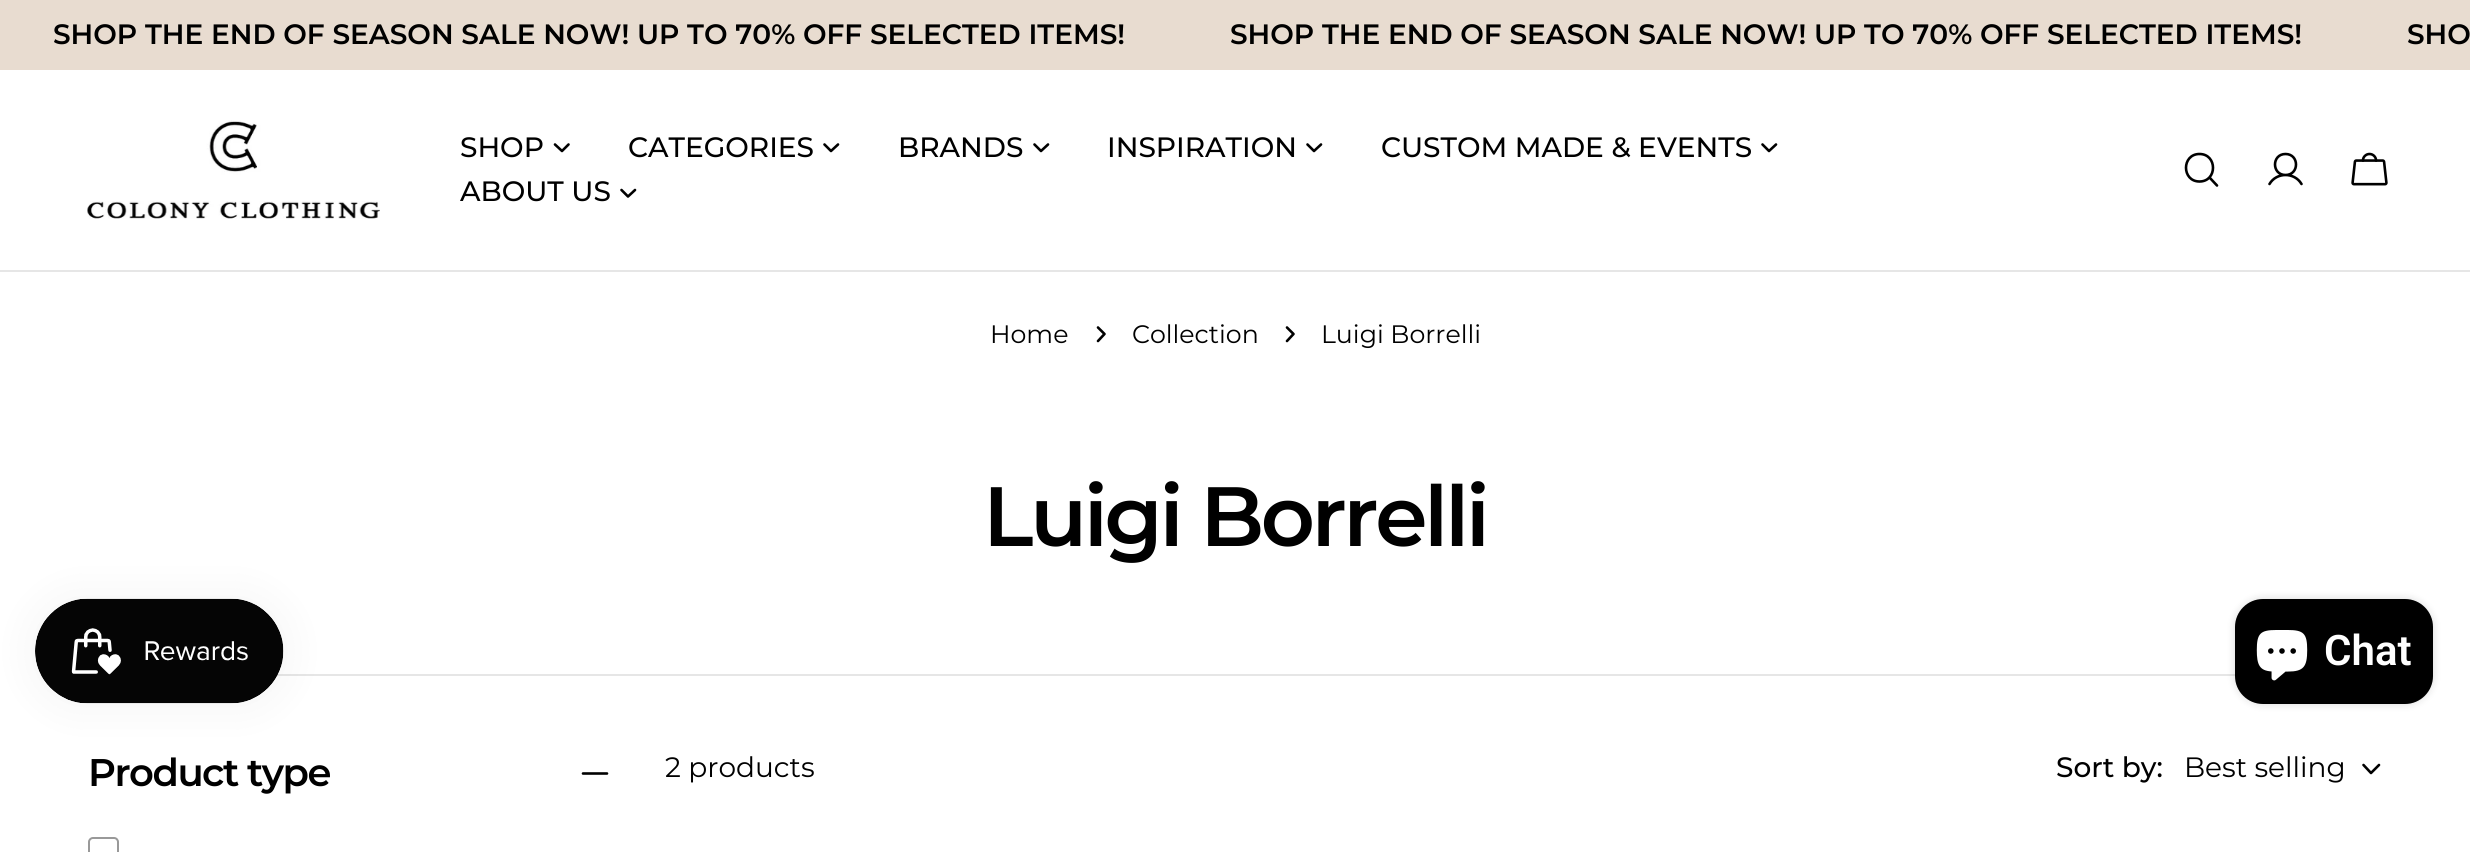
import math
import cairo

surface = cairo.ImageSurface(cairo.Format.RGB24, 2470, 852)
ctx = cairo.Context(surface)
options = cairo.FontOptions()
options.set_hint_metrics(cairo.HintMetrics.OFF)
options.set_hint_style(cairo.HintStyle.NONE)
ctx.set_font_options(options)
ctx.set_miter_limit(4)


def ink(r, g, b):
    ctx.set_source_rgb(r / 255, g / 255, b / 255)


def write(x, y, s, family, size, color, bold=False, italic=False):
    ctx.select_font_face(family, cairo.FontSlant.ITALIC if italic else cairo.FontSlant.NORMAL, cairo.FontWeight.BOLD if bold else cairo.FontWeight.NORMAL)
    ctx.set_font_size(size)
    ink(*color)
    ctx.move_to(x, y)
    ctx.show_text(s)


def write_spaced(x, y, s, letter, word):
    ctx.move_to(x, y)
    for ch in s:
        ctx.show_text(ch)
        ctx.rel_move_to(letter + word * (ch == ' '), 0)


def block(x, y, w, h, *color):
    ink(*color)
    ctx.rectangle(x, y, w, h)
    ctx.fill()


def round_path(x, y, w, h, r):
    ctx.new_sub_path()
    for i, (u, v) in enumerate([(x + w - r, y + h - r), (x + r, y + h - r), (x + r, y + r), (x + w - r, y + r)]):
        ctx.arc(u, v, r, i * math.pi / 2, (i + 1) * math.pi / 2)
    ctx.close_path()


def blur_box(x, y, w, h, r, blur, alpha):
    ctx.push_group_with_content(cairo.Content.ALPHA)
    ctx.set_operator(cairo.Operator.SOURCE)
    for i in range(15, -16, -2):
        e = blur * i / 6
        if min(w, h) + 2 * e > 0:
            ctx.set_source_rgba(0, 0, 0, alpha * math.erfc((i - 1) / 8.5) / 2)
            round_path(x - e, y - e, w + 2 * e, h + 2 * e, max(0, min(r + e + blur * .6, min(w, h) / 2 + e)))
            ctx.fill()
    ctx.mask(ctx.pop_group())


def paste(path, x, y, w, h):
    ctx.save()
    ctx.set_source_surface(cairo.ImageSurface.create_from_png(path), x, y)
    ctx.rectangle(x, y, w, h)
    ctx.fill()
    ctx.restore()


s1 = dict(family="Montserrat SemiBold", size=28, color=(0, 0, 0))
s2 = dict(family="Montserrat Medium", size=28, color=(0, 0, 0))
s3 = dict(family="Montserrat", size=25.25, color=(0, 0, 0))
s4 = dict(family="Montserrat", size=28, color=(0, 0, 0))
s5 = dict(family="Roboto SemiBold", size=42, color=(255, 255, 255))

ink(255, 255, 255)
ctx.paint()
block(0, 0, 2470, 70, 232, 220, 208)
write(53, 44, "SHOP THE END OF SEASON SALE NOW! UP TO 70% OFF SELECTED ITEMS!", **s1)
write(1230, 44, "SHOP THE END OF SEASON SALE NOW! UP TO 70% OFF SELECTED ITEMS!", **s1)
write(2407, 44, "SHO", **s1)
block(0, 270, 2470, 2, 230, 230, 230)
paste("pic1.png", 87, 120, 293, 99)
write(460, 157, "SHOP", **s2)
ctx.new_path()
ctx.move_to(568.5, 144.5)
ctx.line_to(562, 151)
ctx.line_to(555, 144.5)
ctx.set_line_width(2.6)
ctx.set_line_cap(cairo.LineCap.ROUND)
ctx.set_line_join(cairo.LineJoin.ROUND)
ctx.stroke()
write(628, 157, "CATEGORIES", **s2)
ctx.new_path()
ctx.move_to(838, 144.5)
ctx.line_to(831, 151)
ctx.line_to(824.5, 144.5)
ctx.stroke()
write(898, 157, "BRANDS", **s2)
ctx.new_path()
ctx.move_to(1048, 144.5)
ctx.line_to(1041, 151)
ctx.line_to(1034.5, 144.5)
ctx.stroke()
write(1107, 157, "INSPIRATION", **s2)
ctx.new_path()
ctx.move_to(1321, 144.5)
ctx.line_to(1314, 151)
ctx.line_to(1307.5, 144.5)
ctx.stroke()
write(1381, 157, "CUSTOM MADE & EVENTS", **s2)
ctx.new_path()
ctx.move_to(1776, 144.5)
ctx.line_to(1769, 151)
ctx.line_to(1762.5, 144.5)
ctx.stroke()
write(460, 201, "ABOUT US", **s2)
ctx.new_path()
ctx.move_to(635, 190)
ctx.line_to(628, 196.5)
ctx.line_to(621.5, 190)
ctx.stroke()
ctx.new_path()
ctx.move_to(2199.5, 181.5)
ctx.curve_to(2217.5, 181.5, 2217.5, 154, 2199.5, 154)
ctx.curve_to(2181.5, 154, 2181.5, 181.5, 2199.5, 181.5)
ctx.close_path()
ctx.move_to(2209.5, 177.5)
ctx.line_to(2217, 185.5)
ctx.stroke()
ctx.new_path()
ctx.move_to(2285.5, 175)
ctx.curve_to(2299.5, 175, 2299.5, 154, 2285.5, 154)
ctx.curve_to(2271.5, 154, 2271.5, 175, 2285.5, 175)
ctx.close_path()
ctx.move_to(2269.5, 184)
ctx.curve_to(2276.5, 172, 2294.5, 172, 2301.5, 184)
ctx.stroke()
paste("pic2.png", 2351, 152, 37, 34)
write(990, 343, "Home", **s3)
ctx.new_path()
ctx.move_to(1098, 327.5)
ctx.line_to(1104.5, 334)
ctx.line_to(1098, 341)
ctx.stroke()
write(1132, 343, "Collection", **s3)
ctx.new_path()
ctx.move_to(1287, 327.5)
ctx.line_to(1293.5, 334)
ctx.line_to(1287, 341)
ctx.stroke()
write(1321, 343, "Luigi Borrelli", **s3)
ctx.select_font_face("Montserrat SemiBold")
ctx.set_font_size(84)
write_spaced(983, 546, "Luigi Borrelli", -3.4, 0)
block(277, 674, 1958, 2, 230, 230, 230)
ctx.set_font_size(38.5)
ink(0, 0, 0)
write_spaced(88, 786, "Product type", -1.5, 0)
ctx.new_path()
ctx.move_to(583, 773.5)
ctx.line_to(607, 773.5)
ctx.move_to(583, 773.5)
ctx.line_to(607, 773.5)
ctx.stroke()
round_path(89, 838, 29, 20, 4)
ink(153, 153, 153)
ctx.set_line_width(2)
ctx.set_line_cap(cairo.LineCap.BUTT)
ctx.set_line_join(cairo.LineJoin.MITER)
ctx.stroke()
write(665, 777, "2 products", **s4)
write(2056, 777, "Sort by:", **s2)
write(2184, 777, "Best selling", **s4)
ctx.new_path()
ctx.move_to(2379, 765)
ctx.line_to(2371, 773)
ctx.line_to(2363.5, 765)
ctx.set_line_width(2.6)
ctx.set_line_cap(cairo.LineCap.ROUND)
ctx.set_line_join(cairo.LineJoin.ROUND)
ctx.stroke()
ink(0, 0, 0)
blur_box(35, 599, 249, 105, 52.5, 22, 0.05)
paste("pic3.png", 35, 598, 249, 106)
blur_box(2235, 599, 198, 105, 28, 4.5, 0.15)
ink(0, 0, 0)
round_path(2235, 599, 198, 105, 28)
ctx.fill()
paste("pic4.png", 2256, 630, 52, 51)
write(2324, 665, "Chat", **s5)
surface.write_to_png("screenshot.png")
